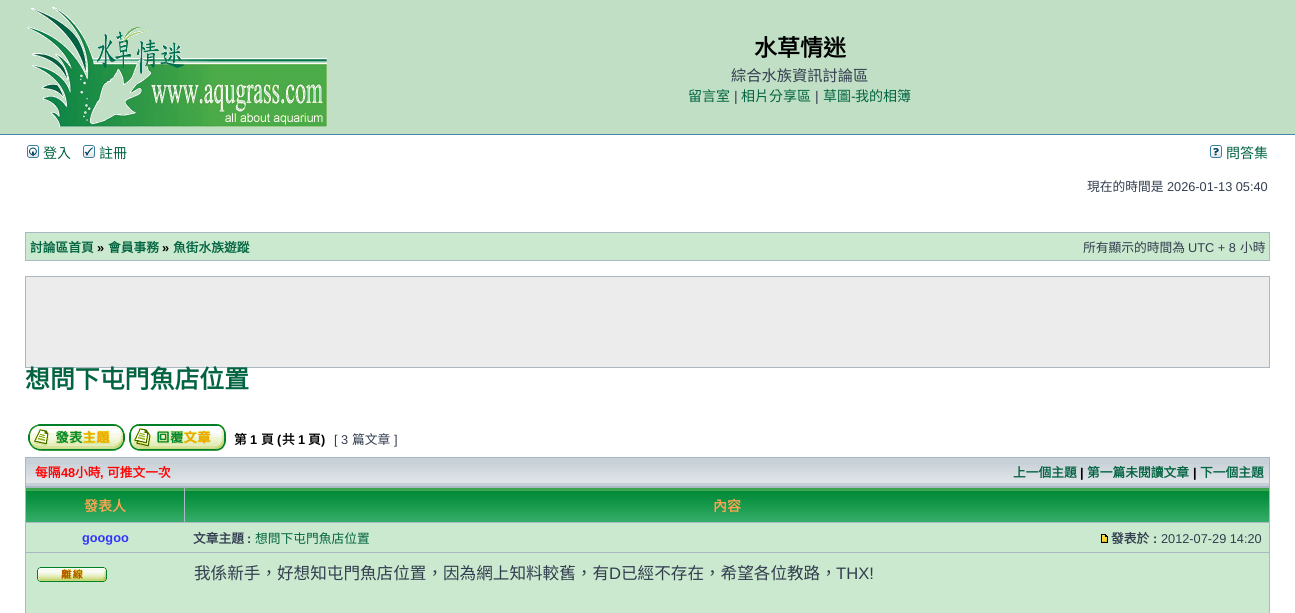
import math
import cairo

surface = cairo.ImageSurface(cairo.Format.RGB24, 1295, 613)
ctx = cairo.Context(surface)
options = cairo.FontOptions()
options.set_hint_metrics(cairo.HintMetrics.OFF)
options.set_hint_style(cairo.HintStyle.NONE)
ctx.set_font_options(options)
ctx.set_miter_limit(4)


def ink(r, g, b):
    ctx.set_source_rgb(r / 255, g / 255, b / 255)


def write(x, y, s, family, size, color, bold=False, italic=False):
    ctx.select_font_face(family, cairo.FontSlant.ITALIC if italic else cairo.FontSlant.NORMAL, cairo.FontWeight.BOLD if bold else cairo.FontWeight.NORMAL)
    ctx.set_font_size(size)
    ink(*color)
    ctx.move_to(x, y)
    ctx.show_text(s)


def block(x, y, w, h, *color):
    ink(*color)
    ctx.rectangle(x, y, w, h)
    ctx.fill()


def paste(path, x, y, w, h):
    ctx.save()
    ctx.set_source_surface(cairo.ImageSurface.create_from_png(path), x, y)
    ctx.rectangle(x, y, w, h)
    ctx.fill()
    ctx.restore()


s1 = dict(family="Noto Sans CJK TC", size=23, color=(0, 0, 0), bold=True)
s2 = dict(family="Noto Sans CJK TC", size=15.25, color=(50, 61, 79))
s3 = dict(family="Noto Sans CJK TC", size=14, color=(2, 100, 65))
s4 = dict(family="Liberation Sans", size=14, color=(50, 61, 79))
s5 = dict(family="Liberation Sans", size=14, color=(2, 100, 65))
s6 = dict(family="Noto Sans CJK TC", size=12.75, color=(50, 61, 79))
s7 = dict(family="Liberation Sans", size=12.75, color=(50, 61, 79))
s8 = dict(family="Noto Sans CJK TC", size=12.75, color=(2, 100, 65), bold=True)
s9 = dict(family="Liberation Sans", size=12.75, color=(0, 0, 0), bold=True)
s10 = dict(family="Noto Sans CJK TC", size=24.9, color=(2, 100, 65), bold=True)
s11 = dict(family="Noto Sans CJK TC", size=12.75, color=(0, 0, 0), bold=True)
s12 = dict(family="Noto Sans CJK TC", size=12.75, color=(255, 0, 0), bold=True)
s13 = dict(family="Liberation Sans", size=12.75, color=(255, 0, 0), bold=True)
s14 = dict(family="Noto Sans CJK TC", size=14, color=(255, 163, 79), bold=True)
s15 = dict(family="Liberation Sans", size=12.75, color=(51, 51, 255), bold=True)
s16 = dict(family="Noto Sans CJK TC", size=12.75, color=(50, 61, 79), bold=True)
s17 = dict(family="Liberation Sans", size=12.75, color=(50, 61, 79), bold=True)
s18 = dict(family="Noto Sans CJK TC", size=12.75, color=(2, 100, 65))
s19 = dict(family="Noto Sans CJK TC", size=16.6, color=(50, 61, 79))
s20 = dict(family="Liberation Sans", size=16.6, color=(50, 61, 79))

ink(255, 255, 255)
ctx.paint()
block(0, 0, 1295, 134, 192, 223, 196)
block(0, 134, 1295, 1, 71, 135, 167)
paste("pic1.png", 27, 7, 300, 120)
write(754, 56, "水草情迷", **s1)
write(731, 81, "綜合水族資訊討論區", **s2)
write(688, 101, "留言室", **s3)
write(734, 101, "|", **s4)
write(741, 101, "相片分享區", **s3)
write(815, 101, "|", **s4)
write(823, 101, "草圖", **s3)
write(851, 101, "-", **s5)
write(855, 101, "我的相簿", **s3)
paste("pic2.png", 27, 145, 12, 13)
write(43, 158, "登入", **s3)
paste("pic3.png", 83, 145, 12, 13)
write(99, 158, "註冊", **s3)
paste("pic4.png", 1210, 145, 12, 13)
write(1226, 158, "問答集", **s3)
write(1087, 191, "現在的時間是", **s6)
write(1167, 191, "2026-01-13 05:40", **s7)
block(25, 232, 1245, 29, 169, 184, 194)
block(26, 233, 1243, 27, 202, 233, 206)
write(30, 252, "討論區首頁", **s8)
write(97, 252, "»", **s9)
write(108, 252, "會員事務", **s8)
write(162, 252, "»", **s9)
write(173, 252, "魚街水族遊蹤", **s8)
write(1083, 252, "所有顯示的時間為", **s6)
write(1188, 252, "UTC + 8", **s7)
write(1240, 252, "小時", **s6)
ink(236, 236, 236)
ctx.rectangle(25.5, 276.5, 1244, 91)
ctx.fill_preserve()
ink(169, 184, 194)
ctx.set_line_width(1)
ctx.stroke()
write(25, 388, "想問下屯門魚店位置", **s10)
paste("pic5.png", 28, 424, 97, 27)
paste("pic6.png", 129, 424, 97, 27)
write(234, 444, "第", **s11)
write(250, 444, "1", **s9)
write(261, 444, "頁", **s11)
write(277, 444, "(", **s9)
write(282, 444, "共", **s11)
write(298, 444, "1", **s9)
write(308, 444, "頁", **s11)
write(321, 444, ")", **s9)
write(334, 444, "[ 3", **s7)
write(352, 444, "篇文章", **s6)
write(394, 444, "]", **s7)
block(25, 457, 1245, 156, 169, 184, 194)
block(26, 458, 1243, 28, 199, 208, 215)
paste("pic7.png", 26, 464, 1243, 19)
write(35, 477, "每隔", **s12)
write(61, 477, "48", **s13)
write(75, 477, "小時", **s12)
write(100, 477, ",", **s13)
write(107, 477, "可推文一次", **s12)
write(1013, 477, "上一個主題", **s8)
write(1080, 477, "|", **s9)
write(1087, 477, "第一篇未閱讀文章", **s8)
write(1193, 477, "|", **s9)
write(1200, 477, "下一個主題", **s8)
paste("pic8.png", 26, 488, 158, 34)
write(84, 511, "發表人", **s14)
paste("pic9.png", 185, 488, 1084, 34)
write(713, 511, "內容", **s14)
block(26, 523, 1243, 29, 202, 233, 206)
write(82, 542, "googoo", **s15)
write(193, 543, "文章主題", **s16)
write(247, 543, ":", **s17)
write(255, 543, "想問下屯門魚店位置", **s18)
paste("pic10.png", 1101, 534, 7, 9)
write(1111, 543, "發表於", **s16)
write(1153, 543, ":", **s17)
write(1161, 543, "2012-07-29 14:20", **s7)
block(26, 553, 1243, 60, 202, 233, 206)
paste("pic11.png", 37, 567, 70, 15)
write(194, 579, "我係新手，好想知屯門魚店位置，因為網上知料較舊，有", **s19)
write(609, 579, "D", **s20)
write(621, 579, "已經不存在，希望各位教路，", **s19)
write(836, 579, "THX!", **s20)
surface.write_to_png("screenshot.png")
